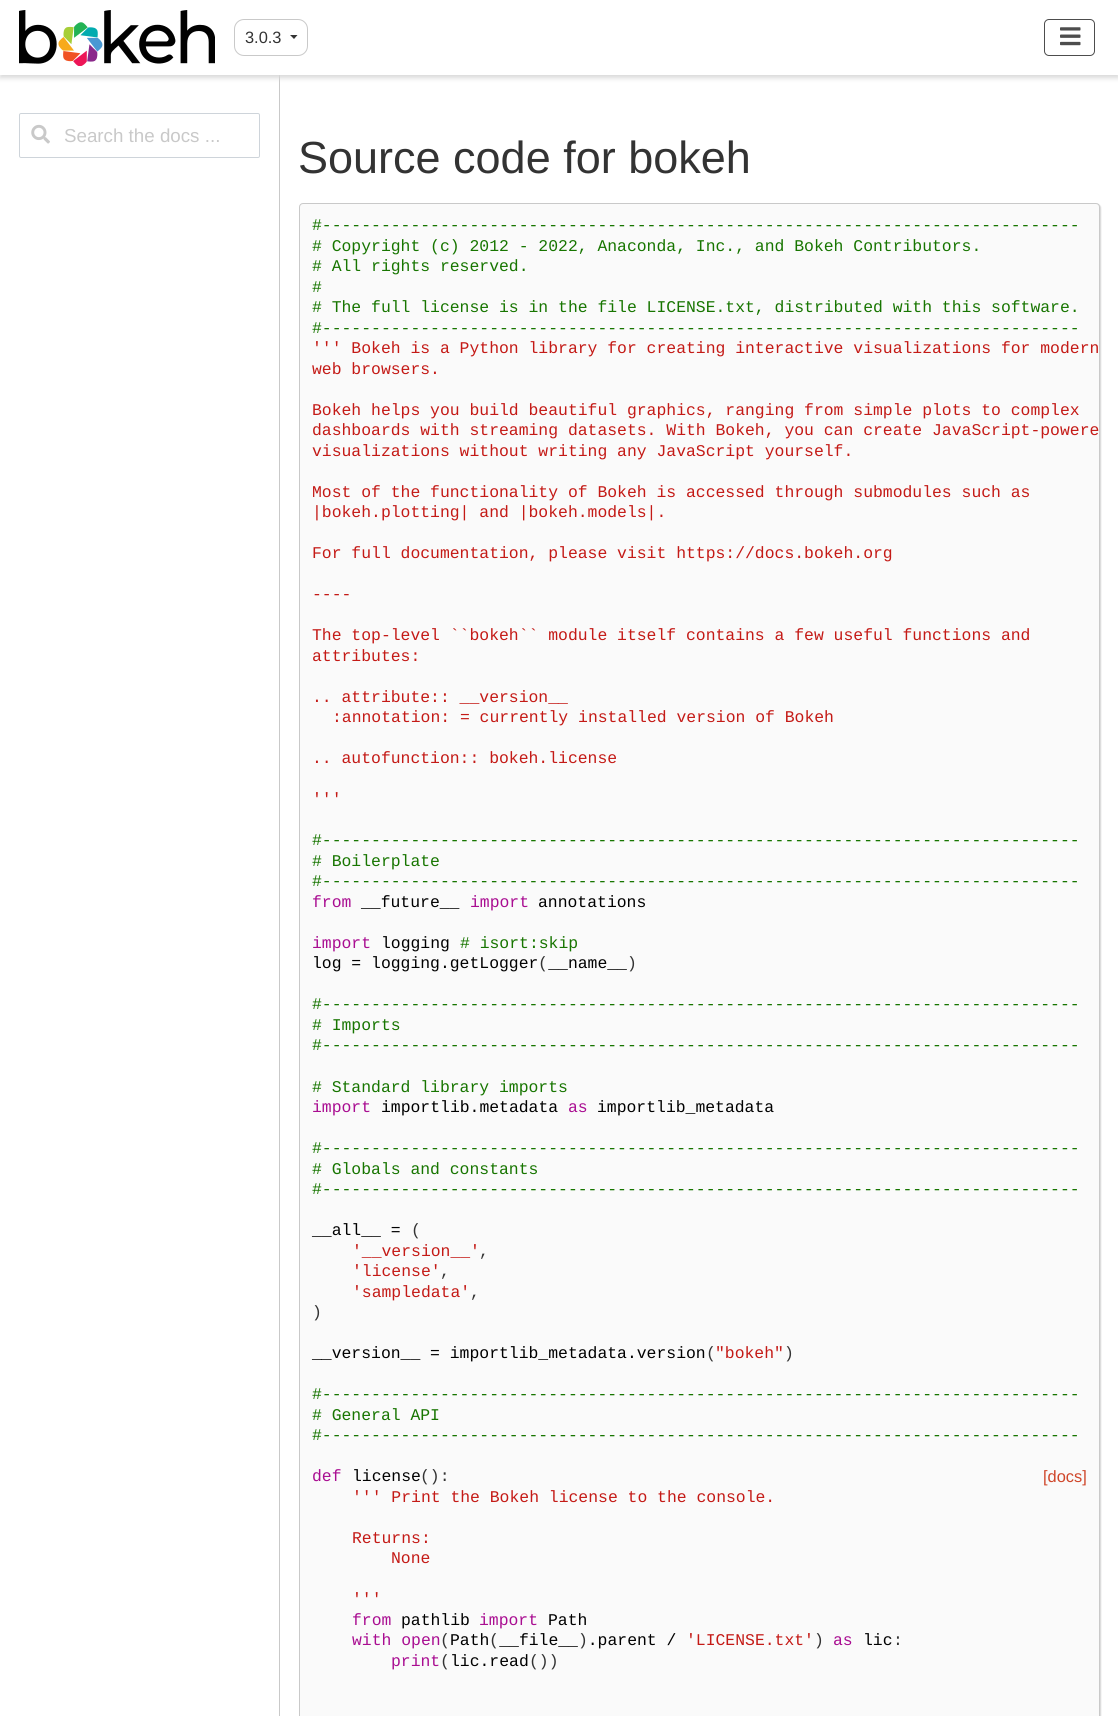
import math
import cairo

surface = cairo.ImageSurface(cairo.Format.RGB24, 1118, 1716)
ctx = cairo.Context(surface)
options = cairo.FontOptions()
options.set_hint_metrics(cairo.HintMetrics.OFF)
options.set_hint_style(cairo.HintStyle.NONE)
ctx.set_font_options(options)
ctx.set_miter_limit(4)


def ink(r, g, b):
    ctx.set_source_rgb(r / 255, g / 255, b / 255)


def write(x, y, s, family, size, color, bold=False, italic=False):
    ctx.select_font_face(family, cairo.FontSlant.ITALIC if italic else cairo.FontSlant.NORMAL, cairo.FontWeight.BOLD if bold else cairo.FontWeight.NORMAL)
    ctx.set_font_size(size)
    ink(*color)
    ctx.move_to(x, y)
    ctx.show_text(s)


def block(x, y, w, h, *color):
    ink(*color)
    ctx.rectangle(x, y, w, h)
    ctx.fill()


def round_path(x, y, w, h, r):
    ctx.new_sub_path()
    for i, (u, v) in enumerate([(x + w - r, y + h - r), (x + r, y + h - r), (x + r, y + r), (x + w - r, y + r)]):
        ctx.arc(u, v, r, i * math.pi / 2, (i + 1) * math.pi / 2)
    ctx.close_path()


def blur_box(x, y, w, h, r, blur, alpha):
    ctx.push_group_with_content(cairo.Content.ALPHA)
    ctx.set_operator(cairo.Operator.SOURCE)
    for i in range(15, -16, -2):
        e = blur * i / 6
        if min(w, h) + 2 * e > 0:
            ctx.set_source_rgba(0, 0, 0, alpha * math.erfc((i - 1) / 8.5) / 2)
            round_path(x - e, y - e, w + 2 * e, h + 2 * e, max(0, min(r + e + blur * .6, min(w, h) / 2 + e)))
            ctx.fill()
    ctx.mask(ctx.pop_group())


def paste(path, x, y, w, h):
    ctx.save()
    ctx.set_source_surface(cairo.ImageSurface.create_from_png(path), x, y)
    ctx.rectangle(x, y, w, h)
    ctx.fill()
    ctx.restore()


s1 = dict(family="Liberation Sans", size=16.4, color=(51, 51, 51))
s2 = dict(family="Liberation Sans", size=18.75, color=(201, 201, 201))
s3 = dict(family="Liberation Sans", size=45, color=(51, 51, 51))
s4 = dict(family="Liberation Mono", size=16.4, color=(23, 117, 0))
s5 = dict(family="Liberation Mono", size=16.4, color=(196, 26, 22))
s6 = dict(family="Liberation Mono", size=16.4, color=(169, 13, 145))
s7 = dict(family="Liberation Mono", size=16.4, color=(0, 0, 0))
s8 = dict(family="Liberation Mono", size=16.4, color=(51, 51, 51))
s9 = dict(family="Liberation Sans", size=16.4, color=(207, 70, 42))

ink(255, 255, 255)
ctx.paint()
block(279, 75, 1, 1641, 201, 201, 201)
ctx.save()
ctx.rectangle(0, 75, 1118, 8)
ctx.clip()
ink(216, 216, 216)
blur_box(0, 3, 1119, 75, 0, 2.5, 1)
ctx.restore()
paste("pic1.png", 19, 10, 196, 56)
round_path(234.5, 19.5, 73, 36, 9.5)
ctx.set_line_width(1)
ctx.stroke()
write(245, 43, "3.0.3", **s1)
ctx.new_path()
ctx.move_to(290, 35)
ctx.line_to(297.5, 35)
ctx.line_to(294, 39)
ctx.close_path()
ctx.fill()
round_path(1044.5, 19.5, 50, 36, 4.5)
ink(77, 77, 77)
ctx.stroke()
paste("pic2.png", 1060, 27, 21, 19)
round_path(19.5, 113.5, 240, 44, 1.5)
ink(206, 212, 218)
ctx.stroke()
paste("pic3.png", 31, 124, 19, 20)
write(64, 142, "Search the docs ...", **s2)
write(298, 173, "Source code for bokeh", **s3)
ink(216, 216, 216)
blur_box(300, 204, 801, 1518, 4, 0.5, 1)
ink(250, 250, 250)
round_path(299.5, 203.5, 800, 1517, 3.5)
ctx.fill_preserve()
ink(201, 201, 201)
ctx.stroke()
write(312, 230, "#-----------------------------------------------------------------------------", **s4)
write(312, 251, "# Copyright (c) 2012 - 2022, Anaconda, Inc., and Bokeh Contributors.", **s4)
write(312, 271, "# All rights reserved.", **s4)
write(312, 292, "#", **s4)
write(312, 312, "# The full license is in the file LICENSE.txt, distributed with this software.", **s4)
write(312, 333, "#-----------------------------------------------------------------------------", **s4)
write(312, 353, "''' Bokeh is a Python library for creating interactive visualizations for modern", **s5)
write(312, 374, "web browsers.", **s5)
write(312, 415, "Bokeh helps you build beautiful graphics, ranging from simple plots to complex", **s5)
write(312, 435, "dashboards with streaming datasets. With Bokeh, you can create JavaScript-powere", **s5)
write(312, 456, "visualizations without writing any JavaScript yourself.", **s5)
write(312, 497, "Most of the functionality of Bokeh is accessed through submodules such as", **s5)
write(312, 517, "|bokeh.plotting| and |bokeh.models|.", **s5)
write(312, 558, "For full documentation, please visit https://docs.bokeh.org", **s5)
write(312, 599, "----", **s5)
write(312, 640, "The top-level ``bokeh`` module itself contains a few useful functions and", **s5)
write(312, 661, "attributes:", **s5)
write(312, 702, ".. attribute:: __version__", **s5)
write(332, 722, ":annotation: = currently installed version of Bokeh", **s5)
write(312, 763, ".. autofunction:: bokeh.license", **s5)
write(312, 804, "'''", **s5)
write(312, 845, "#-----------------------------------------------------------------------------", **s4)
write(312, 866, "# Boilerplate", **s4)
write(312, 886, "#-----------------------------------------------------------------------------", **s4)
write(312, 907, "from", **s6)
write(361, 907, "__future__", **s7)
write(470, 907, "import", **s6)
write(538, 907, "annotations", **s7)
write(312, 948, "import", **s6)
write(381, 948, "logging", **s7)
write(460, 948, "# isort:skip", **s4)
write(312, 968, "log = logging.getLogger __name__", **s7)
write(538, 968, "(", **s8)
write(627, 968, ")", **s8)
write(312, 1009, "#-----------------------------------------------------------------------------", **s4)
write(312, 1030, "# Imports", **s4)
write(312, 1050, "#-----------------------------------------------------------------------------", **s4)
write(312, 1092, "# Standard library imports", **s4)
write(312, 1112, "import", **s6)
write(381, 1112, "importlib.metadata", **s7)
write(568, 1112, "as", **s6)
write(597, 1112, "importlib_metadata", **s7)
write(312, 1153, "#-----------------------------------------------------------------------------", **s4)
write(312, 1174, "# Globals and constants", **s4)
write(312, 1194, "#-----------------------------------------------------------------------------", **s4)
write(312, 1235, "__all__ =", **s7)
write(411, 1235, "(", **s8)
write(352, 1256, "'__version__'", **s5)
write(479, 1256, ",", **s8)
write(352, 1276, "'license'", **s5)
write(440, 1276, ",", **s8)
write(352, 1297, "'sampledata'", **s5)
write(470, 1297, ",", **s8)
write(312, 1317, ")", **s8)
write(312, 1358, "__version__ = importlib_metadata.version", **s7)
write(706, 1358, "(", **s8)
write(715, 1358, "\"bokeh\"", **s5)
write(784, 1358, ")", **s8)
write(312, 1399, "#-----------------------------------------------------------------------------", **s4)
write(312, 1420, "# General API", **s4)
write(312, 1440, "#-----------------------------------------------------------------------------", **s4)
write(312, 1481, "def", **s6)
write(352, 1481, "license", **s7)
write(420, 1481, "():", **s8)
write(1043, 1482, "[docs]", **s9)
write(352, 1502, "''' Print the Bokeh license to the console.", **s5)
write(352, 1543, "Returns:", **s5)
write(391, 1563, "None", **s5)
write(352, 1604, "'''", **s5)
write(352, 1625, "from", **s6)
write(401, 1625, "pathlib", **s7)
write(479, 1625, "import", **s6)
write(548, 1625, "Path", **s7)
write(352, 1645, "with open", **s6)
write(440, 1645, "(", **s8)
write(450, 1645, "Path __file__ .parent /", **s7)
write(489, 1645, "(", **s8)
write(578, 1645, ")", **s8)
write(686, 1645, "'LICENSE.txt'", **s5)
write(814, 1645, ")", **s8)
write(833, 1645, "as", **s6)
write(863, 1645, "lic", **s7)
write(893, 1645, ":", **s8)
write(391, 1666, "print", **s6)
write(440, 1666, "(", **s8)
write(450, 1666, "lic.read", **s7)
write(529, 1666, "())", **s8)
surface.write_to_png("screenshot.png")
